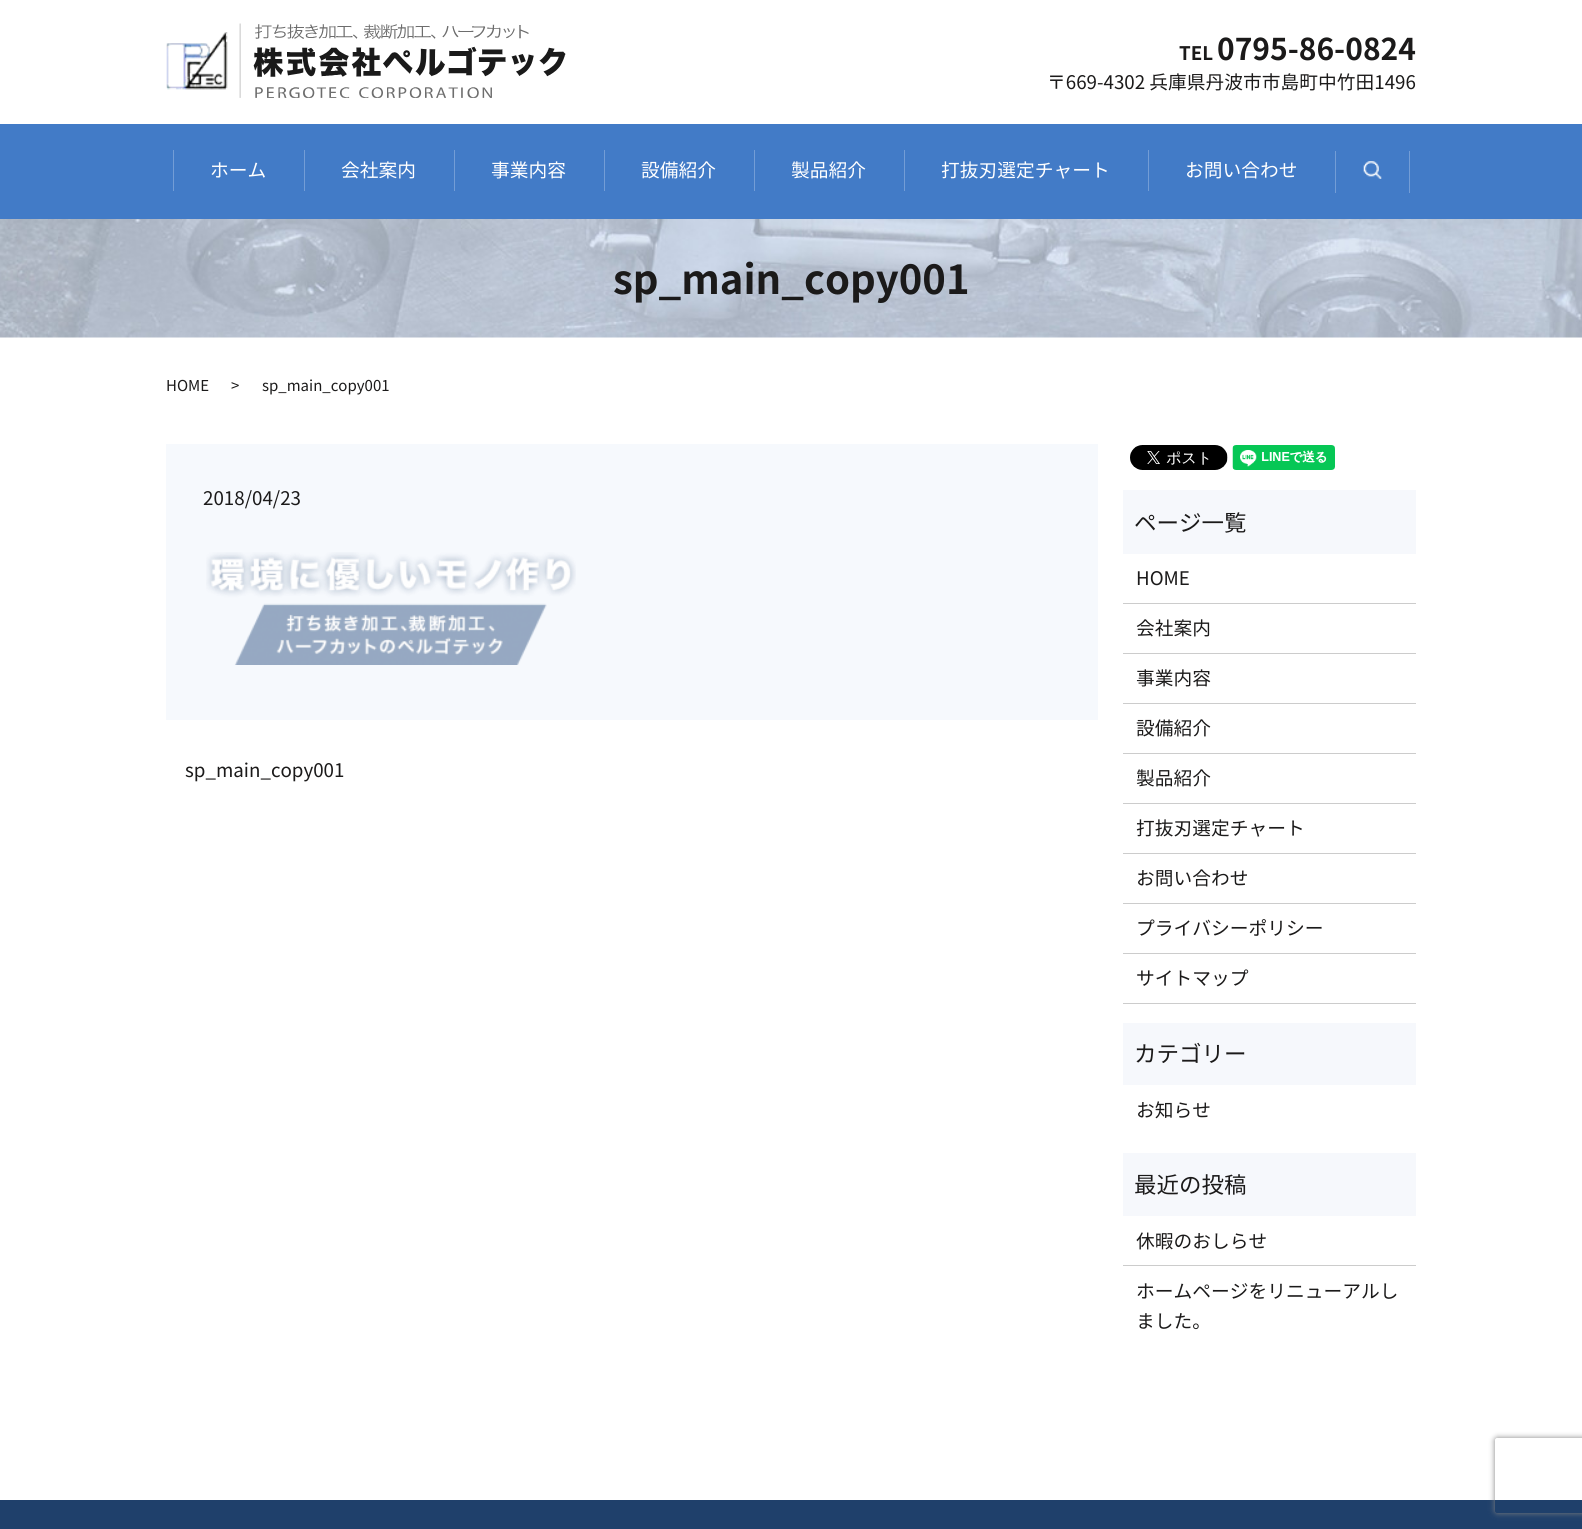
import math
import cairo

surface = cairo.ImageSurface(cairo.Format.RGB24, 1582, 1529)
ctx = cairo.Context(surface)
options = cairo.FontOptions()
options.set_hint_metrics(cairo.HintMetrics.OFF)
options.set_hint_style(cairo.HintStyle.NONE)
ctx.set_font_options(options)
ctx.set_miter_limit(4)


def ink(r, g, b):
    ctx.set_source_rgb(r / 255, g / 255, b / 255)


def write(x, y, s, family, size, color, bold=False, italic=False):
    ctx.select_font_face(family, cairo.FontSlant.ITALIC if italic else cairo.FontSlant.NORMAL, cairo.FontWeight.BOLD if bold else cairo.FontWeight.NORMAL)
    ctx.set_font_size(size)
    ink(*color)
    ctx.move_to(x, y)
    ctx.show_text(s)


def block(x, y, w, h, *color):
    ink(*color)
    ctx.rectangle(x, y, w, h)
    ctx.fill()


def round_path(x, y, w, h, r):
    ctx.new_sub_path()
    for i, (u, v) in enumerate([(x + w - r, y + h - r), (x + r, y + h - r), (x + r, y + r), (x + w - r, y + r)]):
        ctx.arc(u, v, r, i * math.pi / 2, (i + 1) * math.pi / 2)
    ctx.close_path()


def blur_box(x, y, w, h, r, blur, alpha):
    ctx.push_group_with_content(cairo.Content.ALPHA)
    ctx.set_operator(cairo.Operator.SOURCE)
    for i in range(15, -16, -2):
        e = blur * i / 6
        if min(w, h) + 2 * e > 0:
            ctx.set_source_rgba(0, 0, 0, alpha * math.erfc((i - 1) / 8.5) / 2)
            round_path(x - e, y - e, w + 2 * e, h + 2 * e, max(0, min(r + e + blur * .6, min(w, h) / 2 + e)))
            ctx.fill()
    ctx.mask(ctx.pop_group())


def paste(path, x, y, w, h):
    ctx.save()
    ctx.set_source_surface(cairo.ImageSurface.create_from_png(path), x, y)
    ctx.rectangle(x, y, w, h)
    ctx.fill()
    ctx.restore()


s1 = dict(family="Noto Sans JP", size=18.75, color=(27, 26, 26), bold=True)
s2 = dict(family="Noto Sans JP", size=30, color=(27, 26, 26), bold=True)
s3 = dict(family="Noto Sans JP", size=18.75, color=(27, 26, 26))
s4 = dict(family="Noto Sans JP", size=18.75, color=(255, 255, 255))
s5 = dict(family="Noto Sans JP", size=40, color=(27, 26, 26), bold=True)
s6 = dict(family="Noto Sans JP", size=15, color=(27, 26, 26))
s7 = dict(family="Noto Sans JP", size=22.5, color=(27, 26, 26))

ink(255, 255, 255)
ctx.paint()
paste("pic1.png", 166, 23, 400, 75)
write(1179, 60, "TEL", **s1)
write(1217, 60, "0795-86-0824", **s2)
write(1047, 89, "〒669-4302 兵庫県丹波市市島町中竹田1496", **s3)
block(0, 124, 1582, 95, 66, 123, 199)
block(173, 150, 1, 41, 115, 157, 214)
write(210, 177, "ホーム", **s4)
block(304, 150, 1, 41, 115, 157, 214)
write(341, 177, "会社案内", **s4)
block(454, 150, 1, 41, 115, 157, 214)
write(491, 177, "事業内容", **s4)
block(604, 150, 1, 41, 115, 157, 214)
write(641, 177, "設備紹介", **s4)
block(754, 150, 1, 41, 115, 157, 214)
write(791, 177, "製品紹介", **s4)
block(904, 150, 1, 41, 115, 157, 214)
write(941, 177, "打抜刃選定チャート", **s4)
block(1148, 150, 1, 41, 115, 157, 214)
write(1185, 177, "お問い合わせ", **s4)
paste("pic2.png", 1363, 161, 19, 18)
block(1335, 151, 1, 42, 115, 157, 214)
block(1409, 151, 1, 42, 115, 157, 214)
paste("pic3.png", 0, 219, 1582, 119)
write(613, 294, "sp_main_copy001", **s5)
write(166, 391, "HOME", **s6)
write(231, 391, ">", **s6)
write(262, 391, "sp_main_copy001", **s6)
block(166, 444, 932, 276, 246, 249, 253)
write(203, 505, "2018/04/23", **s3)
paste("pic4.png", 206, 552, 370, 113)
write(185, 777, "sp_main_copy001", **s3)
paste("pic5.png", 1130, 445, 98, 25)
paste("pic6.png", 1232, 445, 103, 25)
block(1123, 490, 293, 64, 246, 248, 252)
write(1134, 531, "ページ一覧", **s7)
block(1123, 603, 293, 1, 204, 204, 204)
write(1136, 585, "HOME", **s3)
block(1123, 653, 293, 1, 204, 204, 204)
write(1136, 635, "会社案内", **s3)
block(1123, 703, 293, 1, 204, 204, 204)
write(1136, 685, "事業内容", **s3)
block(1123, 753, 293, 1, 204, 204, 204)
write(1136, 735, "設備紹介", **s3)
block(1123, 803, 293, 1, 204, 204, 204)
write(1136, 785, "製品紹介", **s3)
block(1123, 853, 293, 1, 204, 204, 204)
write(1136, 835, "打抜刃選定チャート", **s3)
block(1123, 903, 293, 1, 204, 204, 204)
write(1136, 885, "お問い合わせ", **s3)
block(1123, 953, 293, 1, 204, 204, 204)
write(1136, 935, "プライバシーポリシー", **s3)
block(1123, 1003, 293, 1, 204, 204, 204)
write(1136, 985, "サイトマップ", **s3)
block(1123, 1023, 293, 62, 246, 248, 252)
write(1134, 1062, "カテゴリー", **s7)
write(1136, 1117, "お知らせ", **s3)
block(1123, 1153, 293, 63, 246, 248, 252)
write(1134, 1193, "最近の投稿", **s7)
block(1123, 1265, 293, 1, 204, 204, 204)
write(1136, 1248, "休暇のおしらせ", **s3)
write(1136, 1298, "ホームページをリニューアルし", **s3)
write(1136, 1328, "ました。", **s3)
block(0, 1500, 1582, 29, 31, 64, 107)
ctx.save()
ctx.set_fill_rule(cairo.FillRule.EVEN_ODD)
ctx.new_path()
ctx.move_to(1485, 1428)
ctx.line_to(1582, 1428)
ctx.line_to(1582, 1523)
ctx.line_to(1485, 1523)
ctx.close_path()
ctx.move_to(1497.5, 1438)
ctx.line_to(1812.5, 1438)
ctx.curve_to(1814, 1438, 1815, 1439, 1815, 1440.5)
ctx.line_to(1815, 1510.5)
ctx.curve_to(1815, 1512, 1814, 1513, 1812.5, 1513)
ctx.line_to(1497.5, 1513)
ctx.curve_to(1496, 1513, 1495, 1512, 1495, 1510.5)
ctx.line_to(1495, 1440.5)
ctx.curve_to(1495, 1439, 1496, 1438, 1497.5, 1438)
ctx.close_path()
ctx.clip()
ink(128, 128, 128)
blur_box(1495, 1438, 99, 75, 2.5, 3, 1)
ctx.restore()
surface.write_to_png("screenshot.png")
